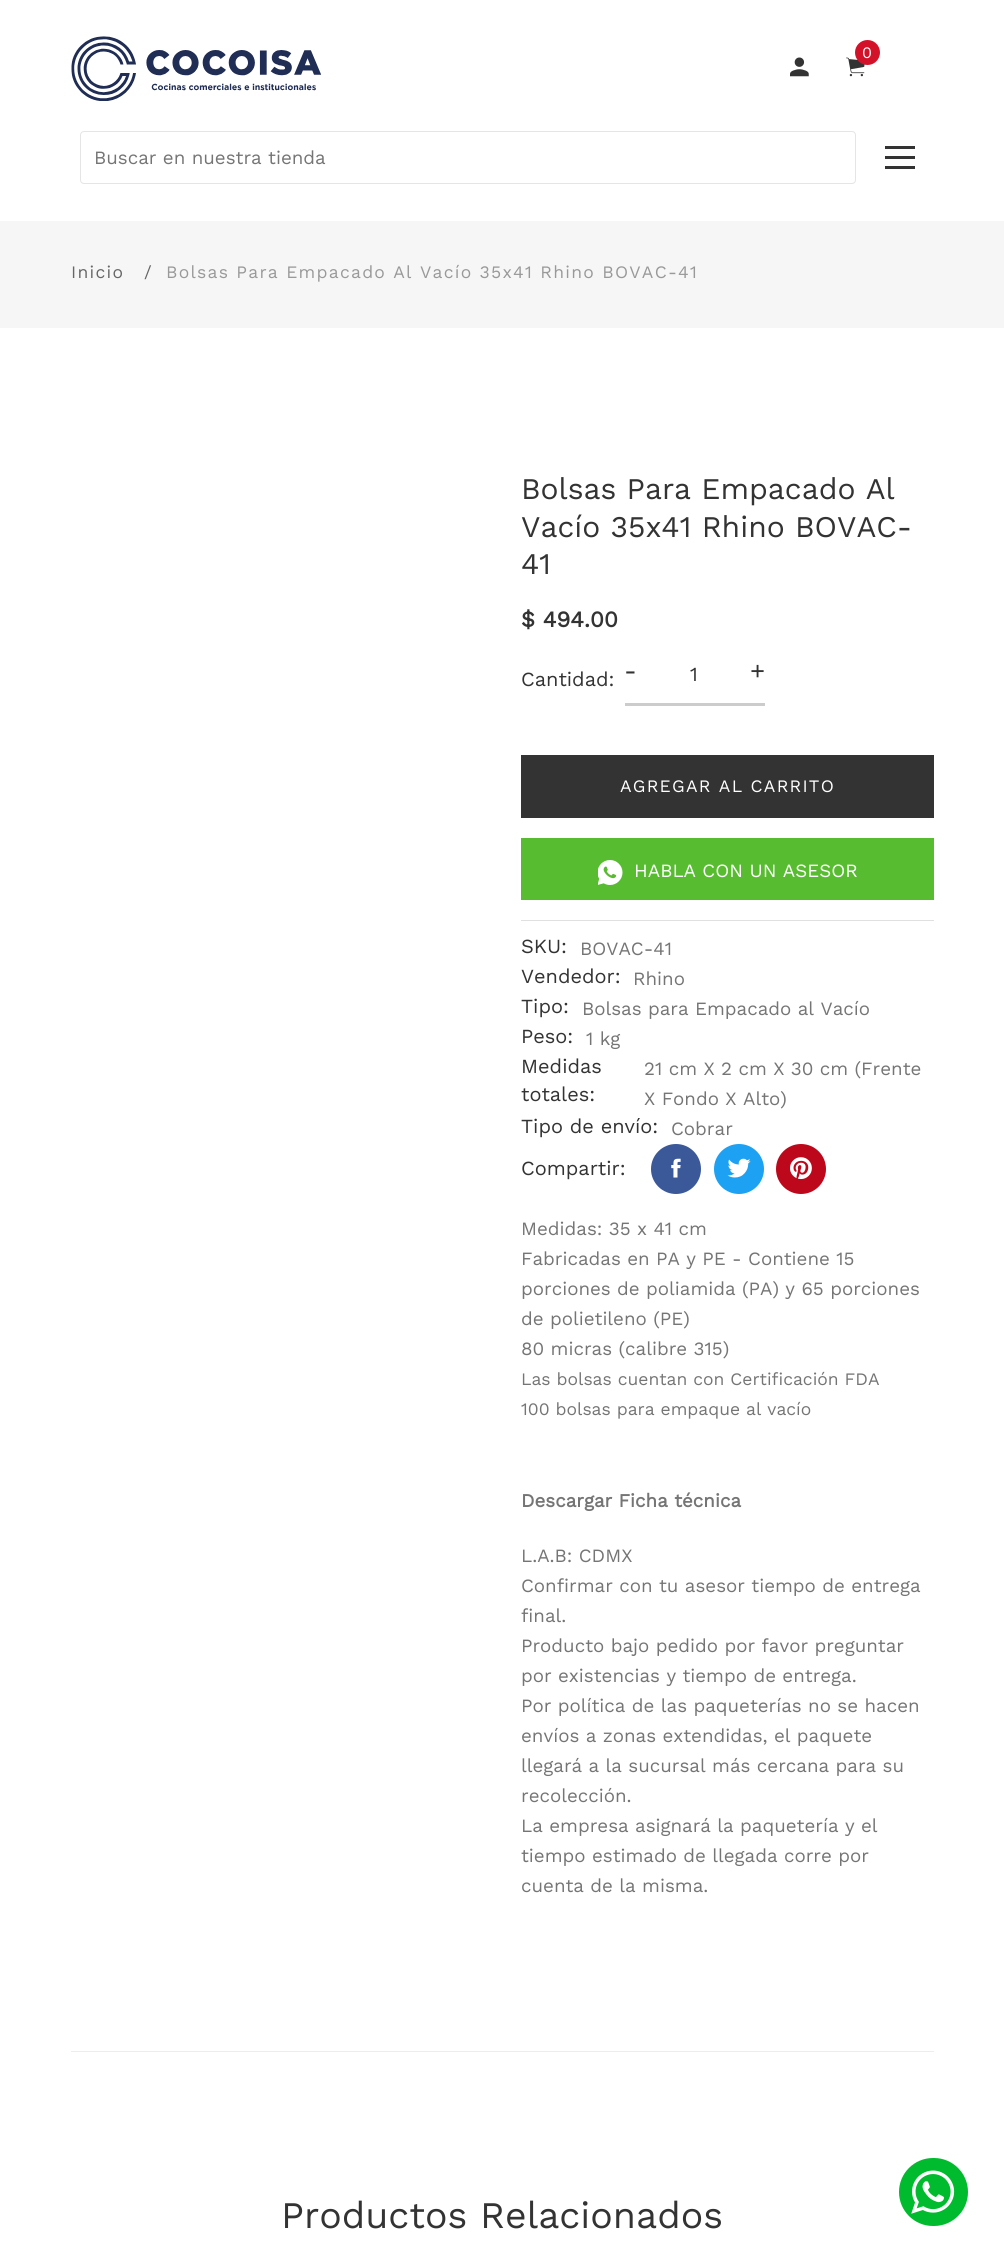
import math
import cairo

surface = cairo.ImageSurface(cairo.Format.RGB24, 1004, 2263)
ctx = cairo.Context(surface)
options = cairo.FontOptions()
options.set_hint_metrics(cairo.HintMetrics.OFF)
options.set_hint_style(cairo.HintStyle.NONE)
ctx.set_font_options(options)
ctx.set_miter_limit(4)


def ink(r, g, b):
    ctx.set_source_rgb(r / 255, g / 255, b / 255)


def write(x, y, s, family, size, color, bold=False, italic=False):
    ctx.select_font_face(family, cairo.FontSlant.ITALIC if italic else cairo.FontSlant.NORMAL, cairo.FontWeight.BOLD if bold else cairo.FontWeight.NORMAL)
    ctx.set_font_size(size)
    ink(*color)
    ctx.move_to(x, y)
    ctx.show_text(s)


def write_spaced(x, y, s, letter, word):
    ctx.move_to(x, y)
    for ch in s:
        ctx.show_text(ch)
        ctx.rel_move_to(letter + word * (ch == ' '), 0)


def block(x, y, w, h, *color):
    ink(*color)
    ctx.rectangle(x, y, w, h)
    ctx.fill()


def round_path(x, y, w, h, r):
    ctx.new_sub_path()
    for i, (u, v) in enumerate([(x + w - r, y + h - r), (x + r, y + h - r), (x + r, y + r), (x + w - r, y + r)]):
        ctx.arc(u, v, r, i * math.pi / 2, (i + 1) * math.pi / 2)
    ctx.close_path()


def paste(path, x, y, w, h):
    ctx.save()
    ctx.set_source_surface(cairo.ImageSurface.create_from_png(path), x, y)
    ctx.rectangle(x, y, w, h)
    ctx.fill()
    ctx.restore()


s1 = dict(family="Work Sans", size=16, color=(255, 255, 255))
s2 = dict(family="Work Sans", size=18.75, color=(117, 117, 117))
s3 = dict(family="Work Sans", size=30, color=(51, 51, 51))
s4 = dict(family="Work Sans", size=22.5, color=(51, 51, 51), bold=True)
s5 = dict(family="Work Sans", size=20, color=(51, 51, 51))
s6 = dict(family="Work Sans", size=25, color=(51, 51, 51))
s7 = dict(family="Work Sans", size=18.75, color=(255, 255, 255))
s8 = dict(family="Work Sans", size=17.5, color=(117, 117, 117))
s9 = dict(family="Work Sans", size=18.75, color=(117, 117, 117), bold=True)
s10 = dict(family="Work Sans", size=37.5, color=(51, 51, 51))

ink(255, 255, 255)
ctx.paint()
paste("pic1.png", 71, 36, 250, 65)
paste("pic2.png", 846, 57, 19, 20)
ink(211, 18, 42)
ctx.arc(867.5, 52.5, 12.5, 0, 2 * math.pi)
ctx.fill()
write(862, 58, "0", **s1)
paste("pic3.png", 790, 57, 19, 20)
round_path(80.5, 131.5, 775, 52, 3.5)
ink(229, 229, 229)
ctx.set_line_width(1)
ctx.stroke()
write(94, 164, "Buscar en nuestra tienda", **s2)
block(885, 156, 30, 3, 51, 51, 51)
block(885, 146, 30, 3, 51, 51, 51)
block(885, 166, 30, 3, 51, 51, 51)
block(0, 221, 1004, 107, 246, 246, 246)
ctx.set_font_size(17.5)
ink(102, 102, 102)
write_spaced(71, 278, "Inicio", 1.25, 0)
write_spaced(144, 278, "/", 1.25, 0)
ink(153, 153, 153)
write_spaced(166, 278, "Bolsas Para Empacado Al Vacío 35x41 Rhino BOVAC-41", 1.25, 0)
write(521, 499, "Bolsas Para Empacado Al", **s3)
write(521, 537, "Vacío 35x41 Rhino BOVAC-", **s3)
write(521, 574, "41", **s3)
write(521, 627, "$ 494.00", **s4)
write(521, 686, "Cantidad:", **s5)
block(625, 703, 140, 3, 204, 204, 204)
write(624, 679, "-", **s6)
write(690, 681, "1", **s5)
write(750, 679, "+", **s6)
block(521, 755, 413, 63, 51, 51, 51)
ctx.set_font_size(17.5)
ink(255, 255, 255)
write_spaced(620, 792, "AGREGAR AL CARRITO", 1.25, 0)
block(521, 838, 413, 62, 87, 188, 48)
paste("pic4.png", 598, 860, 25, 25)
write(634, 877, "HABLA CON UN ASESOR", **s7)
block(521, 920, 413, 1, 224, 224, 224)
write(521, 953, "SKU:", **s5)
write(580, 955, "BOVAC-41", **s2)
write(521, 983, "Vendedor:", **s5)
write(633, 985, "Rhino", **s2)
write(521, 1013, "Tipo:", **s5)
write(582, 1015, "Bolsas para Empacado al Vacío", **s2)
write(521, 1043, "Peso:", **s5)
write(586, 1045, "1 kg", **s2)
write(521, 1073, "Medidas", **s5)
write(521, 1101, "totales:", **s5)
write(644, 1075, "21 cm X 2 cm X 30 cm (Frente", **s2)
write(644, 1105, "X Fondo X Alto)", **s2)
write(521, 1133, "Tipo de envío:", **s5)
write(671, 1135, "Cobrar", **s2)
write(521, 1175, "Compartir:", **s5)
ink(59, 89, 152)
ctx.new_path()
ctx.arc(676, 1169, 25, 0, 2 * math.pi)
ctx.fill()
paste("pic5.png", 671, 1158, 10, 20)
ink(29, 161, 242)
ctx.arc(739, 1169, 25, 0, 2 * math.pi)
ctx.fill()
paste("pic6.png", 727, 1158, 24, 20)
ink(189, 8, 27)
ctx.arc(801, 1169, 25, 0, 2 * math.pi)
ctx.fill()
paste("pic7.png", 790, 1157, 22, 23)
write(521, 1235, "Medidas: 35 x 41 cm", **s2)
write(521, 1265, "Fabricadas en PA y PE - Contiene 15", **s2)
write(521, 1295, "porciones de poliamida (PA) y 65 porciones", **s2)
write(521, 1325, "de polietileno (PE)", **s2)
write(521, 1355, "80 micras (calibre 315)", **s2)
write(521, 1385, "Las bolsas cuentan con Certificación FDA", **s8)
write(521, 1415, "100 bolsas para empaque al vacío", **s8)
write(521, 1507, "Descargar Ficha técnica", **s9)
write(521, 1562, "L.A.B: CDMX", **s2)
write(521, 1592, "Confirmar con tu asesor tiempo de entrega", **s2)
write(521, 1622, "final.", **s2)
write(521, 1652, "Producto bajo pedido por favor preguntar", **s2)
write(521, 1682, "por existencias y tiempo de entrega.", **s2)
write(521, 1712, "Por política de las paqueterías no se hacen", **s2)
write(521, 1742, "envíos a zonas extendidas, el paquete", **s2)
write(521, 1772, "llegará a la sucursal más cercana para su", **s2)
write(521, 1802, "recolección.", **s2)
write(521, 1832, "La empresa asignará la paquetería y el", **s2)
write(521, 1862, "tiempo estimado de llegada corre por", **s2)
write(521, 1892, "cuenta de la misma.", **s2)
block(71, 2051, 863, 1, 237, 237, 237)
write(281, 2228, "Productos Relacionados", **s10)
ink(0, 187, 45)
round_path(899, 2158, 69, 68, 34)
ctx.fill()
paste("pic8.png", 911, 2170, 44, 44)
surface.write_to_png("screenshot.png")
